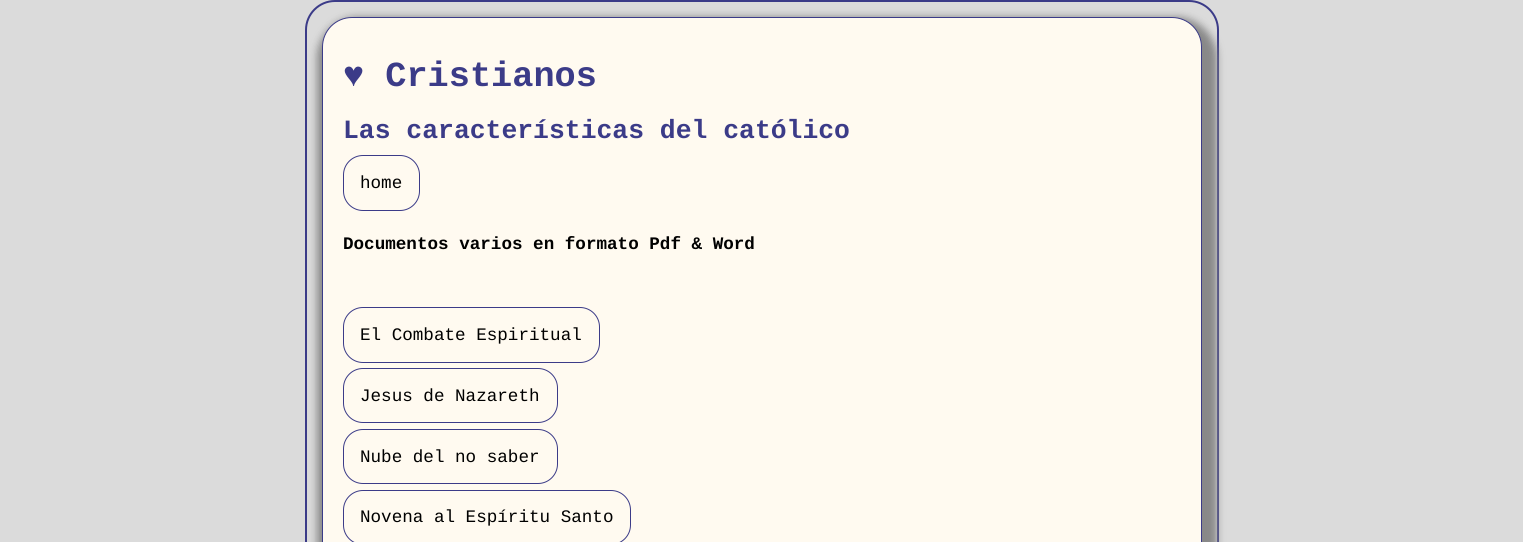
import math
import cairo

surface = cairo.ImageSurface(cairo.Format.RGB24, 1523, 542)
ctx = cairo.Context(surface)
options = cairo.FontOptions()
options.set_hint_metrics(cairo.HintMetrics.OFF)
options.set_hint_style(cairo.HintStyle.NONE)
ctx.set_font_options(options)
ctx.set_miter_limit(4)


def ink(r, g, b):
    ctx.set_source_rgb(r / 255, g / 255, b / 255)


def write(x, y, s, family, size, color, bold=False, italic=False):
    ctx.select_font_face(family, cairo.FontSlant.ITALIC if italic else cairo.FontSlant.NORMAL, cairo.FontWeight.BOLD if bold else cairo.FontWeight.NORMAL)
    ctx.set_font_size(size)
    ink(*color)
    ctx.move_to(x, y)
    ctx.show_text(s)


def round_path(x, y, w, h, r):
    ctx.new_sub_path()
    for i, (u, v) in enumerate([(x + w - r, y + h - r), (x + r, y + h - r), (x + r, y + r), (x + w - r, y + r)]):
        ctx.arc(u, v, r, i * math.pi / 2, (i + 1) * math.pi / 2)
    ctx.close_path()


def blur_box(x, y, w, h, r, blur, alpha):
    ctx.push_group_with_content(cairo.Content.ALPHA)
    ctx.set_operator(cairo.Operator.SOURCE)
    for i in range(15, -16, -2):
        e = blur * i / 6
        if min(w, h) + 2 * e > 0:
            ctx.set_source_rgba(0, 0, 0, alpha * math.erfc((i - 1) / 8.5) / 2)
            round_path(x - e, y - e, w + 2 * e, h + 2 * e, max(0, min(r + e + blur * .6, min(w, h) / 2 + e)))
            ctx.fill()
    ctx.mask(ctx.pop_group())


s1 = dict(family="Liberation Mono", size=35.25, color=(59, 59, 136), bold=True)
s2 = dict(family="Liberation Mono", size=26.4, color=(59, 59, 136), bold=True)
s3 = dict(family="Liberation Mono", size=17.6, color=(0, 0, 0))
s4 = dict(family="Liberation Mono", size=17.6, color=(0, 0, 0), bold=True)

ink(219, 219, 219)
ctx.paint()
round_path(306, 1, 912, 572, 29)
ink(59, 59, 136)
ctx.stroke()
ink(136, 136, 136)
blur_box(317, 17, 900, 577, 40, 4, 1)
ink(255, 250, 240)
round_path(322.5, 17.5, 879, 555, 29.5)
ctx.fill_preserve()
ink(59, 59, 136)
ctx.set_line_width(1)
ctx.stroke()
write(343, 86, "♥ Cristianos", **s1)
write(343, 138, "Las características del católico", **s2)
round_path(343.5, 155.5, 76, 55, 19.5)
ctx.stroke()
write(360, 188, "home", **s3)
write(343, 249, "Documentos varios en formato Pdf & Word", **s4)
round_path(343.5, 307.5, 256, 55, 19.5)
ink(59, 59, 136)
ctx.stroke()
write(360, 340, "El Combate Espiritual", **s3)
round_path(343.5, 368.5, 214, 54, 19.5)
ink(59, 59, 136)
ctx.stroke()
write(360, 401, "Jesus de Nazareth", **s3)
round_path(343.5, 429.5, 214, 54, 19.5)
ink(59, 59, 136)
ctx.stroke()
write(360, 462, "Nube del no saber", **s3)
round_path(343.5, 490.5, 287, 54, 19.5)
ink(59, 59, 136)
ctx.stroke()
write(360, 522, "Novena al Espíritu Santo", **s3)
surface.write_to_png("screenshot.png")
